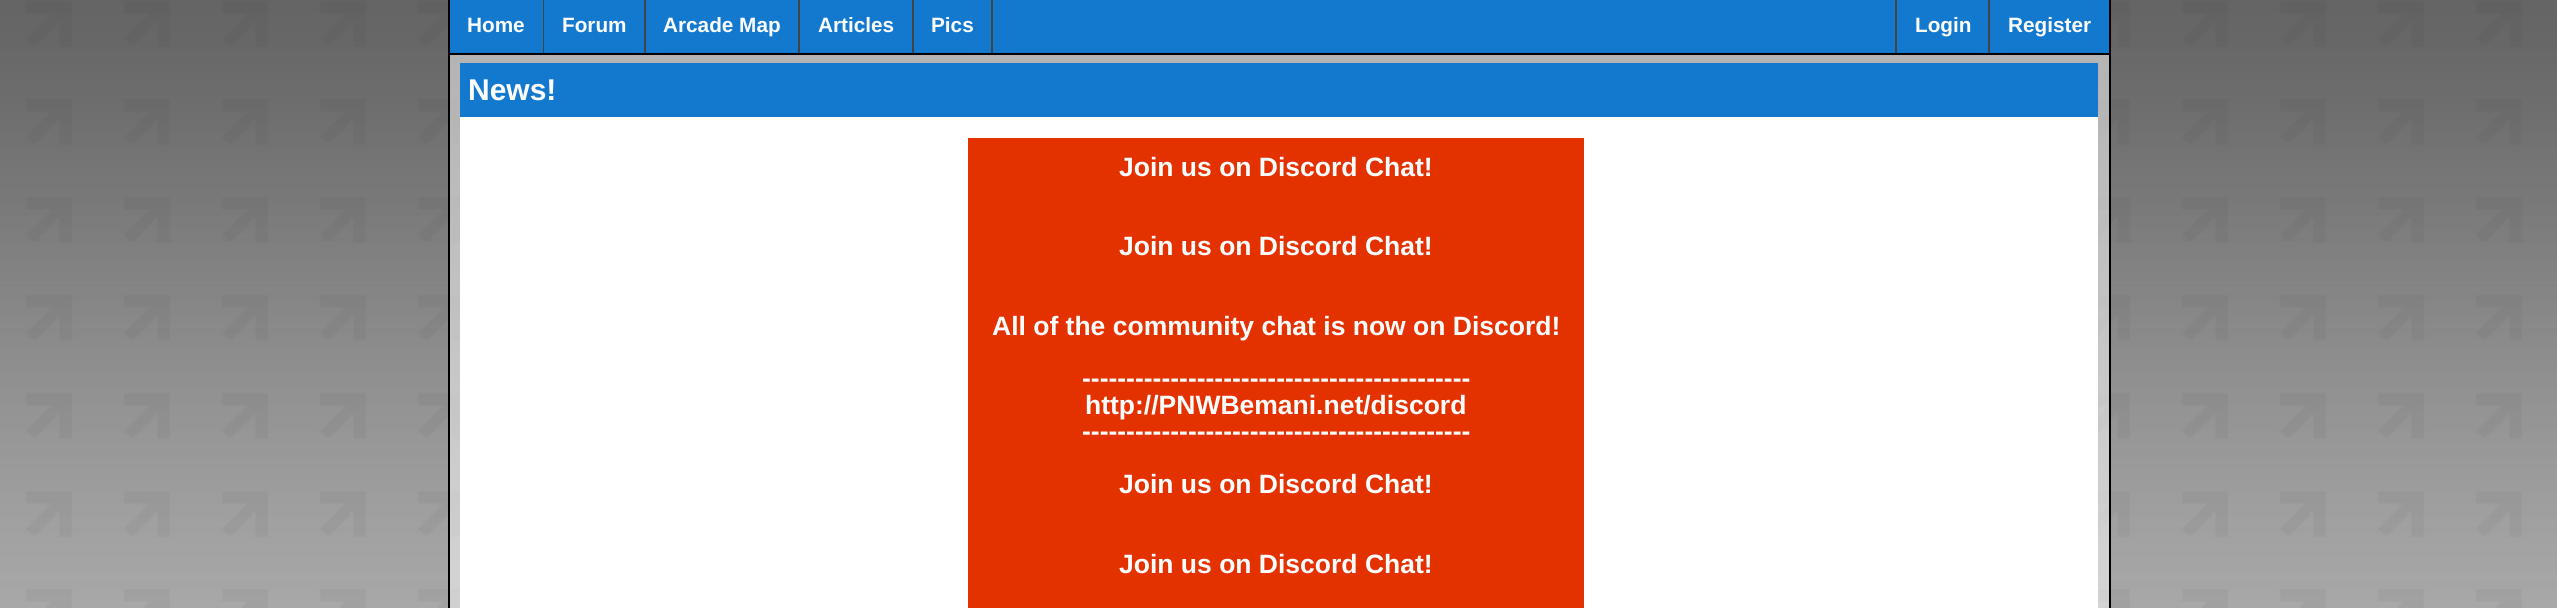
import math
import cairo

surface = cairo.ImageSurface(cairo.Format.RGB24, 2557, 608)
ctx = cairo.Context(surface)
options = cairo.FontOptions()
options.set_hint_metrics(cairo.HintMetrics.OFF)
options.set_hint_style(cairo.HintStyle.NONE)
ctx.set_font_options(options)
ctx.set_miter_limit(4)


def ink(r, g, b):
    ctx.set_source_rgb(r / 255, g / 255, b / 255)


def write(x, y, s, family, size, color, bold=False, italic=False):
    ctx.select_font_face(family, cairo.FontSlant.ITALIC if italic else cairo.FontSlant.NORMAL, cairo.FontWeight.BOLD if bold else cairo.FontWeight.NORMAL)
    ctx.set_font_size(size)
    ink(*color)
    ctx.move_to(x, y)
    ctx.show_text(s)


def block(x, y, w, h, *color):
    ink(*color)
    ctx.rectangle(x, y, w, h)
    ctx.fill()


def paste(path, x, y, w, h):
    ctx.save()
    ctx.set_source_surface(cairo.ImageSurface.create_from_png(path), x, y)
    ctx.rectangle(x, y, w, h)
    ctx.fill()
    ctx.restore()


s1 = dict(family="Liberation Sans", size=20.75, color=(253, 253, 253), bold=True)
s2 = dict(family="Liberation Sans", size=30, color=(253, 253, 253), bold=True)
s3 = dict(family="Liberation Sans", size=26.5, color=(253, 253, 253), bold=True)

ink(255, 255, 255)
ctx.paint()
paste("pic1.png", 0, 0, 2557, 608)
paste("pic2.png", 0, 0, 2557, 608)
ctx.set_source_rgba(1, 1, 1, 0.5)
ctx.rectangle(450, 55, 1659, 553)
ctx.fill()
block(2109, 0, 2, 608, 0, 0, 0)
block(448, 0, 2, 608, 0, 0, 0)
block(450, 0, 1659, 53, 19, 121, 206)
block(450, 53, 1659, 2, 0, 0, 0)
block(543, 0, 1, 53, 68, 68, 68)
write(467, 32, "Home", **s1)
block(644, 0, 2, 53, 68, 68, 68)
write(562, 32, "Forum", **s1)
block(798, 0, 2, 53, 68, 68, 68)
write(663, 32, "Arcade Map", **s1)
block(912, 0, 2, 53, 68, 68, 68)
write(818, 32, "Articles", **s1)
block(991, 0, 2, 53, 68, 68, 68)
write(931, 32, "Pics", **s1)
block(1895, 0, 2, 53, 68, 68, 68)
write(1915, 32, "Login", **s1)
block(1988, 0, 2, 53, 68, 68, 68)
write(2008, 32, "Register", **s1)
block(460, 63, 1638, 54, 19, 121, 206)
write(468, 100, "News!", **s2)
block(460, 117, 1638, 491, 255, 255, 255)
block(968, 138, 616, 470, 227, 49, 0)
write(1119, 176, "Join us on Discord Chat!", **s3)
write(1119, 255, "Join us on Discord Chat!", **s3)
write(992, 335, "All of the community chat is now on Discord!", **s3)
write(1082, 387, "--------------------------------------------", **s3)
write(1085, 414, "http://PNWBemani.net/discord", **s3)
write(1082, 440, "--------------------------------------------", **s3)
write(1119, 493, "Join us on Discord Chat!", **s3)
write(1119, 573, "Join us on Discord Chat!", **s3)
surface.write_to_png("screenshot.png")
